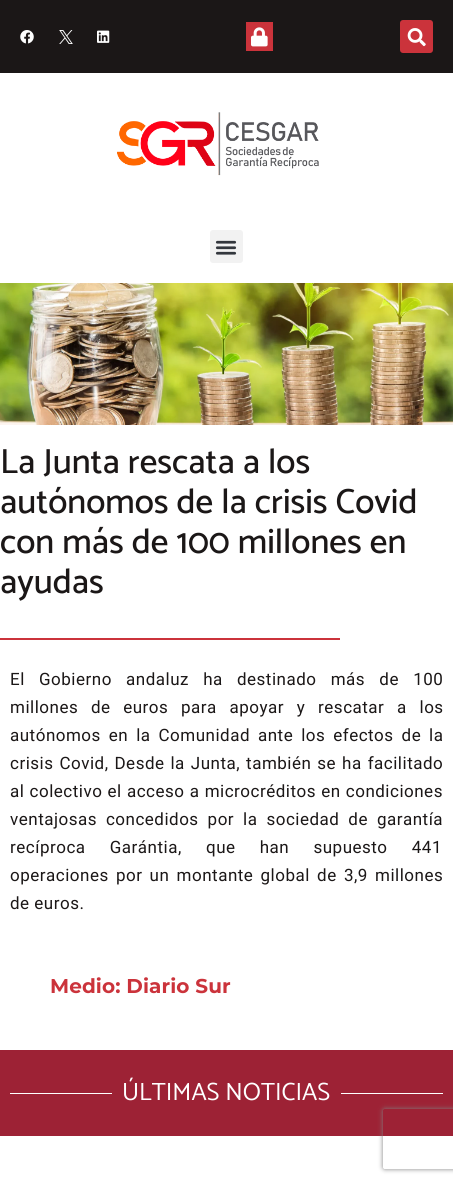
import math
import cairo

surface = cairo.ImageSurface(cairo.Format.RGB24, 453, 1183)
ctx = cairo.Context(surface)
options = cairo.FontOptions()
options.set_hint_metrics(cairo.HintMetrics.OFF)
options.set_hint_style(cairo.HintStyle.NONE)
ctx.set_font_options(options)
ctx.set_miter_limit(4)


def ink(r, g, b):
    ctx.set_source_rgb(r / 255, g / 255, b / 255)


def write(x, y, s, family, size, color, bold=False, italic=False):
    ctx.select_font_face(family, cairo.FontSlant.ITALIC if italic else cairo.FontSlant.NORMAL, cairo.FontWeight.BOLD if bold else cairo.FontWeight.NORMAL)
    ctx.set_font_size(size)
    ink(*color)
    ctx.move_to(x, y)
    ctx.show_text(s)


def write_spaced(x, y, s, letter, word):
    ctx.move_to(x, y)
    for ch in s:
        ctx.show_text(ch)
        ctx.rel_move_to(letter + word * (ch == ' '), 0)


def block(x, y, w, h, *color):
    ink(*color)
    ctx.rectangle(x, y, w, h)
    ctx.fill()


def round_path(x, y, w, h, r):
    ctx.new_sub_path()
    for i, (u, v) in enumerate([(x + w - r, y + h - r), (x + r, y + h - r), (x + r, y + r), (x + w - r, y + r)]):
        ctx.arc(u, v, r, i * math.pi / 2, (i + 1) * math.pi / 2)
    ctx.close_path()


def blur_box(x, y, w, h, r, blur, alpha):
    ctx.push_group_with_content(cairo.Content.ALPHA)
    ctx.set_operator(cairo.Operator.SOURCE)
    for i in range(15, -16, -2):
        e = blur * i / 6
        if min(w, h) + 2 * e > 0:
            ctx.set_source_rgba(0, 0, 0, alpha * math.erfc((i - 1) / 8.5) / 2)
            round_path(x - e, y - e, w + 2 * e, h + 2 * e, max(0, min(r + e + blur * .6, min(w, h) / 2 + e)))
            ctx.fill()
    ctx.mask(ctx.pop_group())


def paste(path, x, y, w, h):
    ctx.save()
    ctx.set_source_surface(cairo.ImageSurface.create_from_png(path), x, y)
    ctx.rectangle(x, y, w, h)
    ctx.fill()
    ctx.restore()


s1 = dict(family="Catamaran Medium", size=35, color=(27, 23, 23))
s2 = dict(family="Catamaran", size=25, color=(255, 255, 255))

ink(255, 255, 255)
ctx.paint()
block(0, 0, 453, 73, 27, 23, 23)
paste("pic1.png", 20, 30, 14, 14)
paste("pic2.png", 59, 30, 14, 14)
paste("pic3.png", 97, 30, 13, 13)
block(246, 22, 27, 29, 203, 51, 59)
paste("pic4.png", 251, 27, 17, 20)
round_path(400, 20, 33, 33, 3)
ctx.fill()
paste("pic5.png", 407, 28, 19, 19)
paste("pic6.png", 117, 112, 202, 64)
ink(242, 242, 242)
round_path(210, 230, 33, 33, 3)
ctx.fill()
paste("pic7.png", 215, 240, 22, 15)
paste("pic8.png", 0, 283, 453, 142)
write(0, 473, "La Junta rescata a los", **s1)
write(0, 513, "autónomos de la crisis Covid", **s1)
write(0, 553, "con más de 100 millones en", **s1)
write(0, 593, "ayudas", **s1)
block(0, 638, 340, 2, 203, 51, 59)
ctx.select_font_face("Roboto")
ctx.set_font_size(17)
ink(27, 23, 23)
write_spaced(10, 685, "El Gobierno andaluz ha destinado más de 100", 0.5, 9.5)
write_spaced(10, 713, "millones de euros para apoyar y rescatar a los", 0.5, 8)
write_spaced(10, 741, "autónomos en la Comunidad ante los efectos de la", 0.5, 3.25)
write_spaced(10, 769, "crisis Covid, Desde la Junta, también se ha facilitado", 0.5, 1.25)
write_spaced(10, 797, "al colectivo el acceso a microcréditos en condiciones", 0.5, 0.5)
write_spaced(10, 825, "ventajosas concedidos por la sociedad de garantía", 0.5, 4.25)
write_spaced(10, 853, "recíproca Garántia, que han supuesto 441", 0.5, 19.5)
write_spaced(10, 881, "operaciones por un montante global de 3,9 millones", 0.5, 2.5)
write_spaced(10, 909, "de euros.", 0.5, 0)
ctx.select_font_face("Montserrat", cairo.FontSlant.NORMAL, cairo.FontWeight.BOLD)
ctx.set_font_size(20)
ink(203, 51, 59)
write_spaced(50, 993, "Medio: Diario Sur", 0.1, 0)
block(0, 1050, 453, 86, 157, 34, 53)
block(10, 1093, 102, 1, 255, 255, 255)
write(122, 1100, "ÚLTIMAS NOTICIAS", **s2)
block(341, 1093, 102, 1, 255, 255, 255)
ctx.save()
ctx.set_fill_rule(cairo.FillRule.EVEN_ODD)
ctx.new_path()
ctx.move_to(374, 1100)
ctx.line_to(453, 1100)
ctx.line_to(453, 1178)
ctx.line_to(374, 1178)
ctx.close_path()
ctx.move_to(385, 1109)
ctx.line_to(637, 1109)
ctx.curve_to(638, 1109, 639, 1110, 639, 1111)
ctx.line_to(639, 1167)
ctx.curve_to(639, 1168, 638, 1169, 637, 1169)
ctx.line_to(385, 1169)
ctx.curve_to(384, 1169, 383, 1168, 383, 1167)
ctx.line_to(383, 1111)
ctx.curve_to(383, 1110, 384, 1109, 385, 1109)
ctx.close_path()
ctx.clip()
ink(128, 128, 128)
blur_box(383, 1109, 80, 60, 2, 2.5, 1)
ctx.restore()
surface.write_to_png("screenshot.png")
